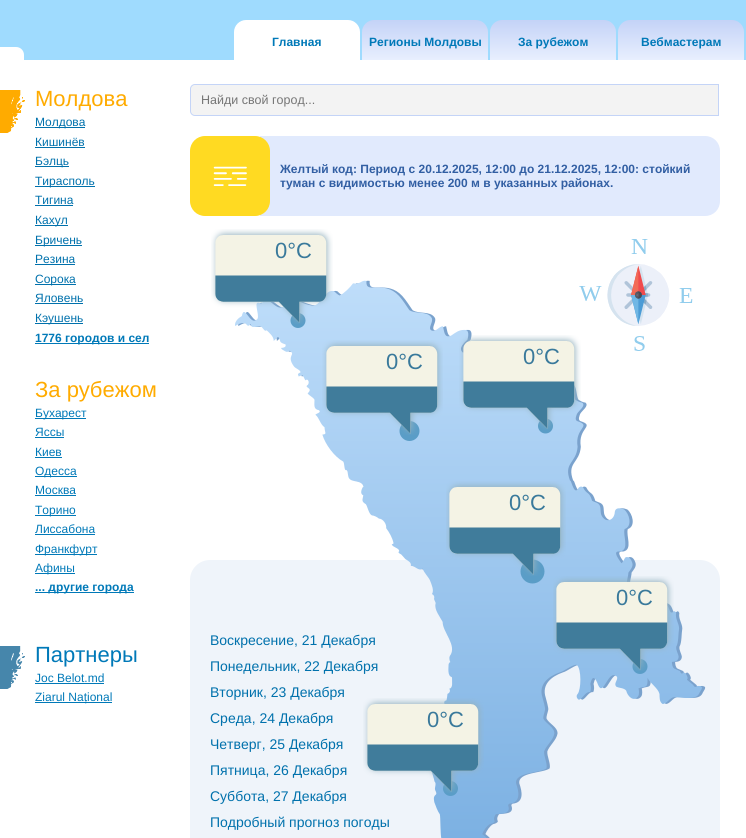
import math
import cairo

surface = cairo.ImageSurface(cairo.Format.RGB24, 746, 838)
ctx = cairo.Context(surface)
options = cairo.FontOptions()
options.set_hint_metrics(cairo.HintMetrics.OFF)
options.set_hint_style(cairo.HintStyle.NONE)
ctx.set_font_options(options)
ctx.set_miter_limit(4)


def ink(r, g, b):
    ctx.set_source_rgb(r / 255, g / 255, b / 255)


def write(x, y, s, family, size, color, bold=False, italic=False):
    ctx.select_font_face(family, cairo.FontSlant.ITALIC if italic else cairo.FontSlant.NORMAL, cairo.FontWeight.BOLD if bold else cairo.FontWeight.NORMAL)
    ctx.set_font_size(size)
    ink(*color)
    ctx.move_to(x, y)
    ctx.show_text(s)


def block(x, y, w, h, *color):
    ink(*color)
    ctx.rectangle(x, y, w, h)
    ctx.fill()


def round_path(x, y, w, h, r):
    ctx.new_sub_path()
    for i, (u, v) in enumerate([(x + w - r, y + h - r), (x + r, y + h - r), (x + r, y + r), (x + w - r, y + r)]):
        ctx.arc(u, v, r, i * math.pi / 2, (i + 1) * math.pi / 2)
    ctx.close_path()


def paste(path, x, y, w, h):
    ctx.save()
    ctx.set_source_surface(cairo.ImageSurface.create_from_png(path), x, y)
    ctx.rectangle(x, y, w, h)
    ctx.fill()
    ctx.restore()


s1 = dict(family="Liberation Sans", size=12, color=(0, 121, 184), bold=True)
s2 = dict(family="Liberation Sans", size=22, color=(255, 171, 0))
s3 = dict(family="Liberation Sans", size=12, color=(0, 113, 172))
s4 = dict(family="Liberation Sans", size=12, color=(0, 121, 184))
s5 = dict(family="Liberation Sans", size=22, color=(0, 121, 184))
s6 = dict(family="Liberation Sans", size=12.5, color=(117, 117, 117))
s7 = dict(family="Liberation Sans", size=12, color=(50, 95, 163), bold=True)
s8 = dict(family="Liberation Sans", size=22, color=(57, 121, 155))
s9 = dict(family="Liberation Sans", size=14, color=(0, 113, 172))

ink(159, 219, 254)
ctx.paint()
ink(255, 255, 255)
ctx.new_path()
ctx.move_to(246, 20)
ctx.line_to(348, 20)
ctx.curve_to(354.5, 20, 360, 25.5, 360, 32)
ctx.line_to(360, 60)
ctx.line_to(234, 60)
ctx.line_to(234, 32)
ctx.curve_to(234, 25.5, 239.5, 20, 246, 20)
ctx.close_path()
ctx.fill()
write(272, 46, "Главная", **s1)
gradient = cairo.LinearGradient(425, 20, 425, 60)
gradient.add_color_stop_rgba(0, 0.769, 0.827, 0.969, 1)
gradient.add_color_stop_rgba(1, 0.91, 0.937, 0.996, 1)
ctx.set_source(gradient)
ctx.new_path()
ctx.move_to(374, 20)
ctx.line_to(476, 20)
ctx.curve_to(482.5, 20, 488, 25.5, 488, 32)
ctx.line_to(488, 60)
ctx.line_to(362, 60)
ctx.line_to(362, 32)
ctx.curve_to(362, 25.5, 367.5, 20, 374, 20)
ctx.close_path()
ctx.fill()
write(369, 46, "Регионы Молдовы", **s1)
gradient = cairo.LinearGradient(553, 20, 553, 60)
gradient.add_color_stop_rgba(0, 0.769, 0.827, 0.969, 1)
gradient.add_color_stop_rgba(1, 0.91, 0.937, 0.996, 1)
ctx.set_source(gradient)
ctx.new_path()
ctx.move_to(502, 20)
ctx.line_to(604, 20)
ctx.curve_to(610.5, 20, 616, 25.5, 616, 32)
ctx.line_to(616, 60)
ctx.line_to(490, 60)
ctx.line_to(490, 32)
ctx.curve_to(490, 25.5, 495.5, 20, 502, 20)
ctx.close_path()
ctx.fill()
write(518, 46, "За рубежом", **s1)
gradient = cairo.LinearGradient(681, 20, 681, 60)
gradient.add_color_stop_rgba(0, 0.769, 0.827, 0.969, 1)
gradient.add_color_stop_rgba(1, 0.91, 0.937, 0.996, 1)
ctx.set_source(gradient)
ctx.new_path()
ctx.move_to(630, 20)
ctx.line_to(732, 20)
ctx.curve_to(738.5, 20, 744, 25.5, 744, 32)
ctx.line_to(744, 60)
ctx.line_to(618, 60)
ctx.line_to(618, 32)
ctx.curve_to(618, 25.5, 623.5, 20, 630, 20)
ctx.close_path()
ctx.fill()
write(641, 46, "Вебмастерам", **s1)
block(0, 60, 746, 778, 255, 255, 255)
ctx.new_path()
ctx.move_to(0, 47)
ctx.line_to(16, 47)
ctx.curve_to(20.5, 47, 24, 50.5, 24, 55)
ctx.line_to(24, 85)
ctx.line_to(-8, 85)
ctx.line_to(-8, 55)
ctx.curve_to(-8, 50.5, -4.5, 47, 0, 47)
ctx.close_path()
ctx.fill()
paste("pic1.png", 0, 90, 25, 43)
write(35, 106, "Молдова", **s2)
block(35, 127, 50, 1, 0, 113, 172)
write(35, 126, "Молдова", **s3)
write(35, 146, "Кишинёв", **s3)
block(35, 147, 50, 1, 0, 113, 172)
block(35, 166, 34, 1, 0, 113, 172)
write(35, 165, "Бэлць", **s3)
block(35, 186, 60, 1, 0, 113, 172)
write(35, 185, "Тирасполь", **s3)
write(35, 204, "Тигина", **s3)
block(35, 205, 38, 1, 0, 113, 172)
block(35, 225, 33, 1, 0, 113, 172)
write(35, 224, "Кахул", **s3)
block(35, 245, 47, 1, 0, 113, 172)
write(35, 244, "Бричень", **s3)
write(35, 263, "Резина", **s3)
block(35, 264, 40, 1, 0, 113, 172)
block(35, 284, 41, 1, 0, 113, 172)
write(35, 283, "Сорока", **s3)
write(35, 302, "Яловень", **s3)
block(35, 303, 48, 1, 0, 113, 172)
block(35, 323, 48, 1, 0, 113, 172)
write(35, 322, "Кэушень", **s3)
block(35, 343, 114, 1, 0, 121, 184)
write(35, 342, "1776 городов и сел", **s1)
write(35, 397, "За рубежом", **s2)
block(35, 418, 51, 1, 0, 121, 184)
write(35, 417, "Бухарест", **s4)
write(35, 436, "Яссы", **s4)
block(35, 437, 29, 1, 0, 121, 184)
write(35, 456, "Киев", **s4)
block(35, 457, 27, 1, 0, 121, 184)
block(35, 476, 42, 1, 0, 121, 184)
write(35, 475, "Одесса", **s4)
write(35, 494, "Москва", **s4)
block(35, 495, 41, 1, 0, 121, 184)
block(35, 515, 41, 1, 0, 121, 184)
write(35, 514, "Торино", **s4)
write(35, 533, "Лиссабона", **s4)
block(35, 534, 60, 1, 0, 121, 184)
block(35, 554, 62, 1, 0, 121, 184)
write(35, 553, "Франкфурт", **s4)
block(35, 573, 40, 1, 0, 121, 184)
write(35, 572, "Афины", **s4)
block(35, 592, 99, 1, 0, 121, 184)
write(35, 591, "... другие города", **s1)
paste("pic2.png", 0, 646, 25, 43)
write(35, 662, "Партнеры", **s5)
write(35, 682, "Joc Belot.md", **s4)
block(35, 683, 69, 1, 0, 121, 184)
block(35, 702, 77, 1, 0, 121, 184)
write(35, 701, "Ziarul Național", **s4)
ink(243, 243, 243)
ctx.new_path()
ctx.move_to(195, 84.5)
ctx.line_to(718.5, 84.5)
ctx.line_to(718.5, 115.5)
ctx.line_to(195, 115.5)
ctx.curve_to(192.5, 115.5, 190.5, 113.5, 190.5, 111)
ctx.line_to(190.5, 89)
ctx.curve_to(190.5, 86.5, 192.5, 84.5, 195, 84.5)
ctx.close_path()
ctx.fill_preserve()
ink(196, 212, 247)
ctx.set_line_width(1)
ctx.stroke()
write(201, 104, "Найди свой город...", **s6)
ink(225, 234, 253)
ctx.new_path()
ctx.move_to(260, 136)
ctx.line_to(705, 136)
ctx.curve_to(713.5, 136, 720, 142.5, 720, 151)
ctx.line_to(720, 201)
ctx.curve_to(720, 209.5, 713.5, 216, 705, 216)
ctx.line_to(260, 216)
ctx.close_path()
ctx.fill()
ink(255, 218, 34)
round_path(190, 136, 80, 80, 15)
ctx.fill()
paste("pic3.png", 213, 166, 34, 20)
write(280, 173, "Желтый код: Период с 20.12.2025, 12:00 до 21.12.2025, 12:00: стойкий", **s7)
write(280, 187, "туман с видимостью менее 200 м в указанных районах.", **s7)
paste("pic5.png", 579, 239, 114, 112)
ink(239, 244, 250)
round_path(190, 560, 530, 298, 20)
ctx.fill()
paste("pic6.png", 235, 280, 471, 558)
paste("pic4.png", 211, 229, 122, 95)
write(275, 258, "0°C", **s8)
paste("pic7.png", 322, 340, 121, 95)
write(386, 369, "0°C", **s8)
paste("pic8.png", 459, 335, 122, 95)
write(523, 364, "0°C", **s8)
paste("pic9.png", 446, 481, 120, 95)
write(509, 510, "0°C", **s8)
paste("pic10.png", 553, 576, 121, 95)
write(616, 605, "0°C", **s8)
write(210, 645, "Воскресение, 21 Декабря", **s9)
write(210, 671, "Понедельник, 22 Декабря", **s9)
write(210, 697, "Вторник, 23 Декабря", **s9)
write(210, 723, "Среда, 24 Декабря", **s9)
write(210, 749, "Четверг, 25 Декабря", **s9)
write(210, 775, "Пятница, 26 Декабря", **s9)
write(210, 801, "Суббота, 27 Декабря", **s9)
write(210, 827, "Подробный прогноз погоды", **s9)
paste("pic11.png", 363, 698, 121, 95)
write(427, 727, "0°C", **s8)
surface.write_to_png("screenshot.png")
